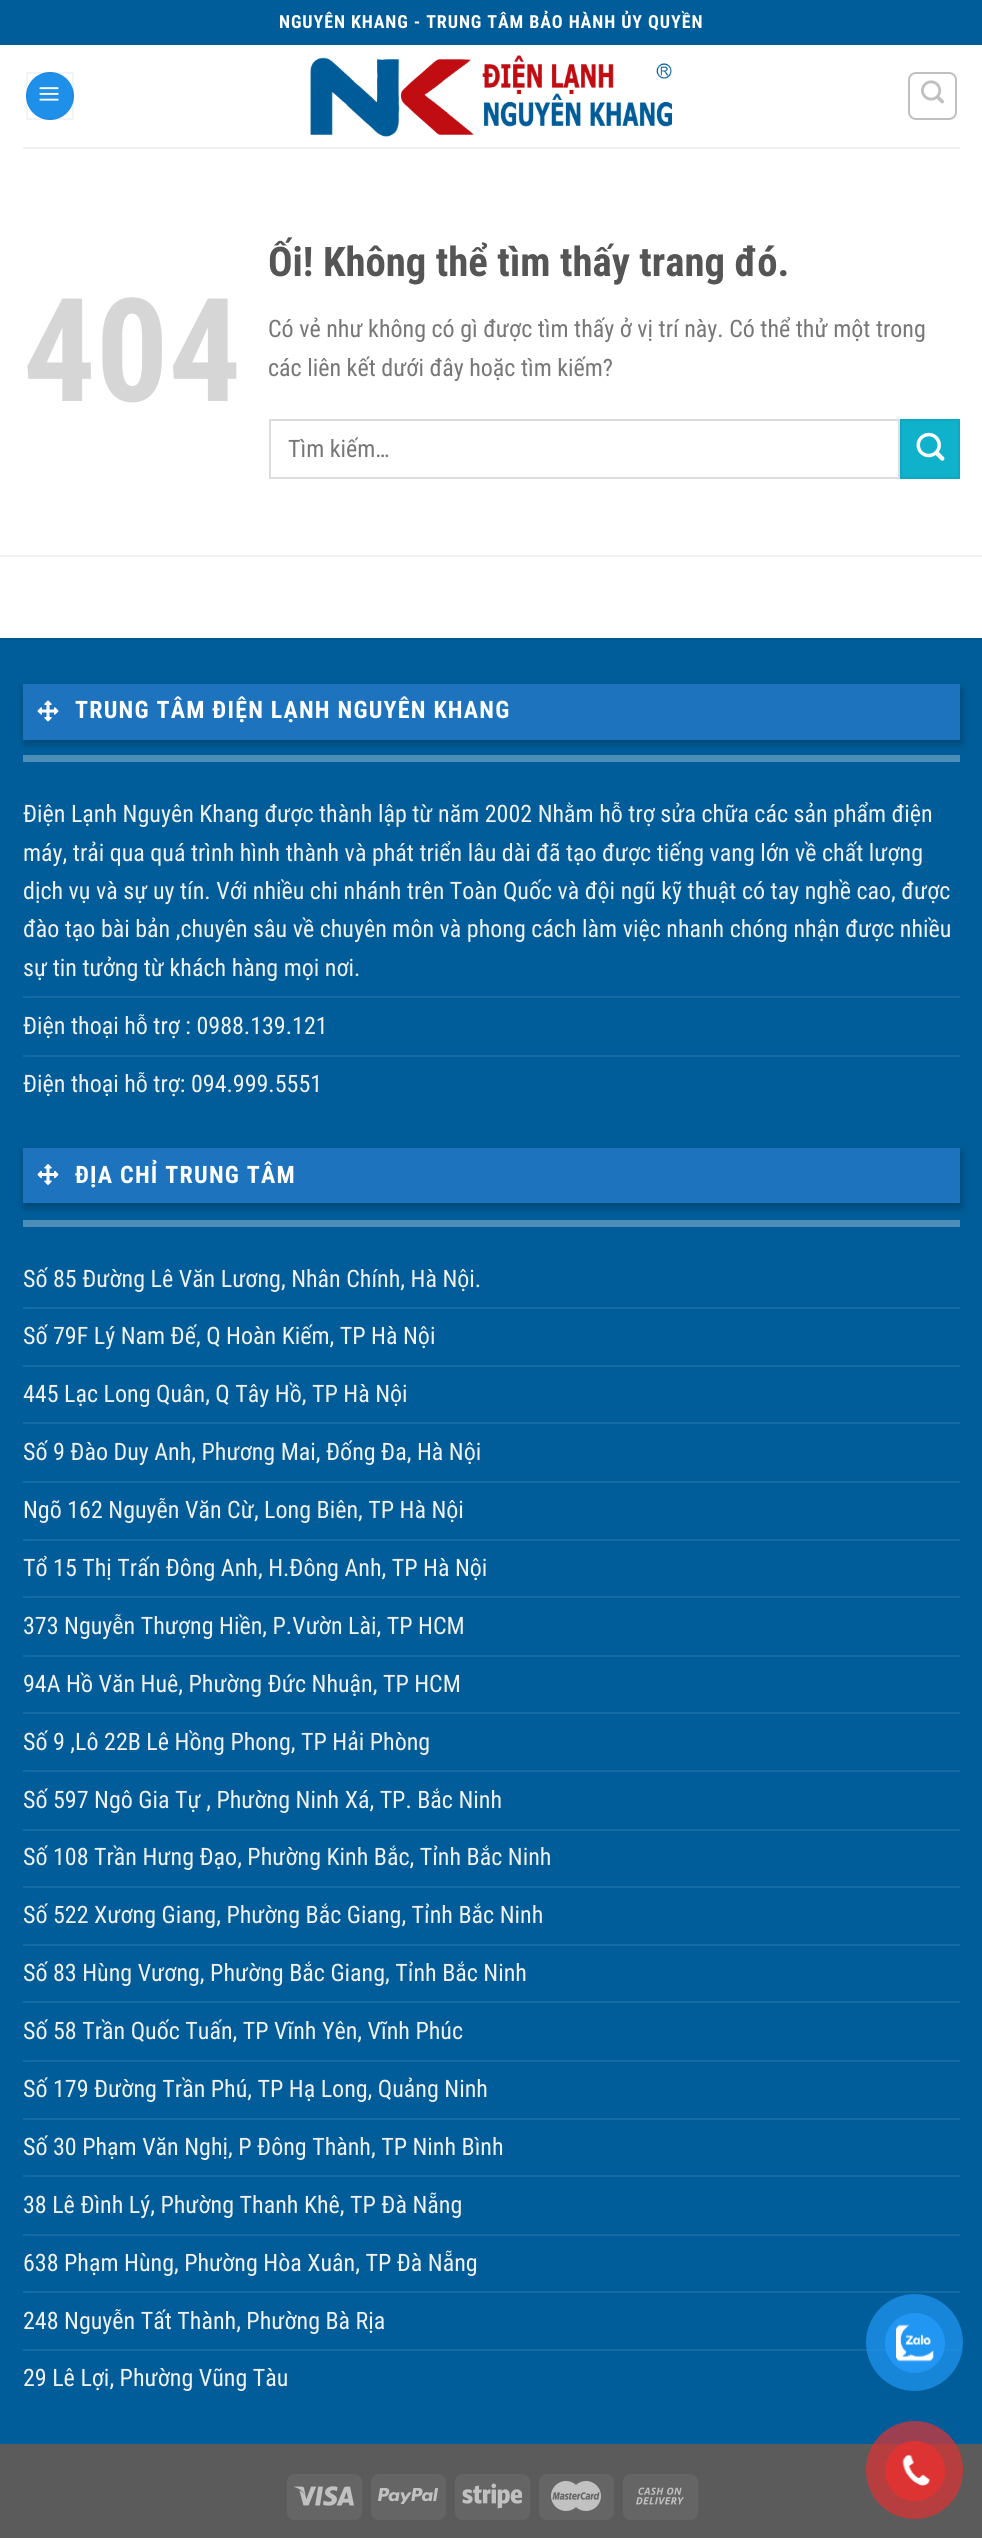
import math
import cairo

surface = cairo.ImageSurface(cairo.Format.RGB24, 982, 2538)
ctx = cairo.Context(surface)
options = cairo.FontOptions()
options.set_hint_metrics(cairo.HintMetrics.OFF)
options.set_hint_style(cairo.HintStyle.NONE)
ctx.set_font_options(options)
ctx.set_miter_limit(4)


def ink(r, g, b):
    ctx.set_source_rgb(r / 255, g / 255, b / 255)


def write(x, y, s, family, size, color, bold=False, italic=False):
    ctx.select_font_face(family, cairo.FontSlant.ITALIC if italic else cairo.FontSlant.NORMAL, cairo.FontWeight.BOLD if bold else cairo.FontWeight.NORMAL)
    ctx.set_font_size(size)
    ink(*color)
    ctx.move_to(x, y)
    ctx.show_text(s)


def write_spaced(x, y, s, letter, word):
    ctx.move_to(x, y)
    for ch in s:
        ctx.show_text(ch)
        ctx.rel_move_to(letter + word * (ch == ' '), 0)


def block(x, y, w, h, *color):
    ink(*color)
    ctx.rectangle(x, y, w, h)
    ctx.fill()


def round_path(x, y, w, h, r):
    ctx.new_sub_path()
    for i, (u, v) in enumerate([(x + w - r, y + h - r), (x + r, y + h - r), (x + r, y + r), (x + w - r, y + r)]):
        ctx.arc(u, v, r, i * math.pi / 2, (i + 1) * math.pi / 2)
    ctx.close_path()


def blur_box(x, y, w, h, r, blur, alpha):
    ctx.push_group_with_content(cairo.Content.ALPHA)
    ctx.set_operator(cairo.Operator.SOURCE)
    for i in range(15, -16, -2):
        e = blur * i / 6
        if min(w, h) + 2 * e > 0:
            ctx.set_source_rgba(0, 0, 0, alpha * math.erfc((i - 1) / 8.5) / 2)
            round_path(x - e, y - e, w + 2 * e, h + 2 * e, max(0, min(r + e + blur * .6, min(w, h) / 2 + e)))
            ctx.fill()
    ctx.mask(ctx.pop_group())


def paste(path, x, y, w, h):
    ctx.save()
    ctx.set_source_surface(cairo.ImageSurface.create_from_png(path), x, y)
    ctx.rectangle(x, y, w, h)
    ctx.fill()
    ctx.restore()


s1 = dict(family="Roboto Condensed", size=144, color=(214, 214, 214), bold=True)
s2 = dict(family="Roboto Condensed", size=40.75, color=(85, 85, 85), bold=True)
s3 = dict(family="Roboto Condensed", size=24, color=(119, 119, 119))
s4 = dict(family="Roboto Condensed", size=24, color=(241, 241, 241))

ink(255, 255, 255)
ctx.paint()
block(0, 0, 982, 45, 0, 93, 153)
ctx.select_font_face("Roboto Condensed", cairo.FontSlant.NORMAL, cairo.FontWeight.BOLD)
ctx.set_font_size(18)
ink(255, 255, 255)
write_spaced(279, 28, "NGUYÊN KHANG - TRUNG TÂM BẢO HÀNH ỦY QUYỀN", 0.9, 0)
ink(31, 144, 233)
ctx.new_path()
ctx.arc(50, 96, 24, 0, 2 * math.pi)
ctx.fill()
ctx.rectangle(27, 73, 46, 46)
ctx.set_source_rgba(0, 0, 0, 0.05)
ctx.stroke()
paste("pic1.png", 39, 87, 20, 14)
paste("pic2.png", 310, 55, 362, 82)
round_path(909, 73, 47, 46, 7)
ink(192, 192, 192)
ctx.stroke()
paste("pic3.png", 921, 80, 23, 24)
block(23, 147, 937, 2, 241, 241, 241)
write(23, 401, "404", **s1)
write(268, 276, "Ối! Không thể tìm thấy trang đó.", **s2)
write(268, 337, "Có vẻ như không có gì được tìm thấy ở vị trí này. Có thể thử một trong", **s3)
write(268, 376, "các liên kết dưới đây hoặc tìm kiếm?", **s3)
ctx.rectangle(270, 420, 629, 58)
ink(221, 221, 221)
ctx.stroke()
write(288, 457, "Tìm kiếm…", **s3)
ink(16, 177, 203)
ctx.rectangle(901, 420, 58, 58)
ctx.fill_preserve()
ink(15, 168, 193)
ctx.stroke()
paste("pic4.png", 916, 432, 29, 29)
block(0, 555, 982, 2, 242, 242, 242)
block(0, 640, 982, 1804, 0, 93, 153)
block(0, 638, 982, 2, 0, 88, 145)
ink(0, 0, 0)
blur_box(24, 689, 938, 55, 0, 4, 0.24)
block(23, 684, 937, 56, 30, 115, 190)
paste("pic5.png", 37, 700, 22, 22)
ctx.select_font_face("Roboto Condensed", cairo.FontSlant.NORMAL, cairo.FontWeight.BOLD)
ink(255, 255, 255)
write_spaced(75, 718, "TRUNG TÂM ĐIỆN LẠNH NGUYÊN KHANG", 1.2, 0)
block(23, 755, 937, 7, 77, 142, 184)
write(23, 822, "Điện Lạnh Nguyên Khang được thành lập từ năm 2002 Nhằm hỗ trợ sửa chữa các sản phẩm điện", **s4)
write(23, 861, "máy, trải qua quá trình hình thành và phát triển lâu dài đã tạo được tiếng vang lớn về chất lượng", **s4)
write(23, 899, "dịch vụ và sự uy tín. Với nhiều chi nhánh trên Toàn Quốc và đội ngũ kỹ thuật có tay nghề cao, được", **s4)
write(23, 937, "đào tạo bài bản ,chuyên sâu về chuyên môn và phong cách làm việc nhanh chóng nhận được nhiều", **s4)
write(23, 976, "sự tin tưởng từ khách hàng mọi nơi.", **s4)
block(23, 996, 937, 2, 20, 106, 161)
write(23, 1034, "Điện thoại hỗ trợ : 0988.139.121", **s4)
block(23, 1055, 937, 2, 20, 106, 161)
write(23, 1092, "Điện thoại hỗ trợ: 094.999.5551", **s4)
ink(0, 0, 0)
blur_box(24, 1152, 938, 56, 0, 4, 0.24)
block(23, 1148, 937, 55, 30, 115, 190)
paste("pic6.png", 37, 1164, 22, 21)
ctx.select_font_face("Roboto Condensed", cairo.FontSlant.NORMAL, cairo.FontWeight.BOLD)
ink(255, 255, 255)
write_spaced(75, 1183, "ĐỊA CHỈ TRUNG TÂM", 1.2, 0)
block(23, 1220, 937, 7, 77, 142, 184)
write(23, 1287, "Số 85 Đường Lê Văn Lương, Nhân Chính, Hà Nội.", **s4)
block(23, 1307, 937, 2, 20, 106, 161)
write(23, 1344, "Số 79F Lý Nam Đế, Q Hoàn Kiếm, TP Hà Nội", **s4)
block(23, 1365, 937, 2, 20, 106, 161)
write(23, 1402, "445 Lạc Long Quân, Q Tây Hồ, TP Hà Nội", **s4)
block(23, 1422, 937, 2, 20, 106, 161)
write(23, 1460, "Số 9 Đào Duy Anh, Phương Mai, Đống Đa, Hà Nội", **s4)
block(23, 1481, 937, 2, 20, 106, 161)
write(23, 1518, "Ngõ 162 Nguyễn Văn Cừ, Long Biên, TP Hà Nội", **s4)
block(23, 1539, 937, 2, 20, 106, 161)
write(23, 1576, "Tổ 15 Thị Trấn Đông Anh, H.Đông Anh, TP Hà Nội", **s4)
block(23, 1596, 937, 2, 20, 106, 161)
write(23, 1634, "373 Nguyễn Thượng Hiền, P.Vườn Lài, TP HCM", **s4)
block(23, 1655, 937, 2, 20, 106, 161)
write(23, 1692, "94A Hồ Văn Huê, Phường Đức Nhuận, TP HCM", **s4)
block(23, 1712, 937, 2, 20, 106, 161)
write(23, 1750, "Số 9 ,Lô 22B Lê Hồng Phong, TP Hải Phòng", **s4)
block(23, 1770, 937, 2, 20, 106, 161)
write(23, 1808, "Số 597 Ngô Gia Tự , Phường Ninh Xá, TP. Bắc Ninh", **s4)
block(23, 1829, 937, 2, 20, 106, 161)
write(23, 1865, "Số 108 Trần Hưng Đạo, Phường Kinh Bắc, Tỉnh Bắc Ninh", **s4)
block(23, 1886, 937, 2, 20, 106, 161)
write(23, 1923, "Số 522 Xương Giang, Phường Bắc Giang, Tỉnh Bắc Ninh", **s4)
block(23, 1944, 937, 2, 20, 106, 161)
write(23, 1981, "Số 83 Hùng Vương, Phường Bắc Giang, Tỉnh Bắc Ninh", **s4)
block(23, 2001, 937, 2, 20, 106, 161)
write(23, 2039, "Số 58 Trần Quốc Tuấn, TP Vĩnh Yên, Vĩnh Phúc", **s4)
block(23, 2060, 937, 2, 20, 106, 161)
write(23, 2097, "Số 179 Đường Trần Phú, TP Hạ Long, Quảng Ninh", **s4)
block(23, 2118, 937, 2, 20, 106, 161)
write(23, 2155, "Số 30 Phạm Văn Nghị, P Đông Thành, TP Ninh Bình", **s4)
block(23, 2175, 937, 2, 20, 106, 161)
write(23, 2213, "38 Lê Đình Lý, Phường Thanh Khê, TP Đà Nẵng", **s4)
block(23, 2234, 937, 2, 20, 106, 161)
write(23, 2271, "638 Phạm Hùng, Phường Hòa Xuân, TP Đà Nẵng", **s4)
block(23, 2291, 937, 2, 20, 106, 161)
write(23, 2329, "248 Nguyễn Tất Thành, Phường Bà Rịa", **s4)
block(23, 2349, 937, 2, 20, 106, 161)
write(23, 2386, "29 Lê Lợi, Phường Vũng Tàu", **s4)
block(0, 2444, 982, 94, 91, 91, 91)
ink(101, 101, 101)
round_path(287, 2474, 75, 46, 8)
ctx.fill()
paste("pic7.png", 294, 2486, 60, 20)
round_path(371, 2474, 75, 46, 8)
ctx.fill()
paste("pic8.png", 378, 2488, 60, 16)
round_path(455, 2474, 75, 46, 8)
ctx.fill()
paste("pic9.png", 462, 2483, 60, 26)
round_path(539, 2474, 75, 46, 8)
ctx.fill()
paste("pic10.png", 551, 2481, 50, 30)
round_path(623, 2474, 75, 46, 8)
ctx.fill()
paste("pic11.png", 636, 2487, 48, 18)
ctx.set_source_rgba(0.129, 0.588, 0.953, 0.7)
ctx.arc(914.5, 2342.5, 48.5, 0, 2 * math.pi)
ctx.fill()
ink(33, 150, 243)
ctx.arc(915, 2343, 30, 0, 2 * math.pi)
ctx.fill()
paste("pic12.png", 896, 2324, 38, 38)
ctx.set_source_rgba(0.867, 0.2, 0.2, 0.7)
round_path(866, 2421, 97, 98, 48.5)
ctx.fill()
ink(221, 51, 51)
ctx.arc(915, 2471, 30, 0, 2 * math.pi)
ctx.fill()
paste("pic13.png", 902, 2454, 28, 32)
surface.write_to_png("screenshot.png")
